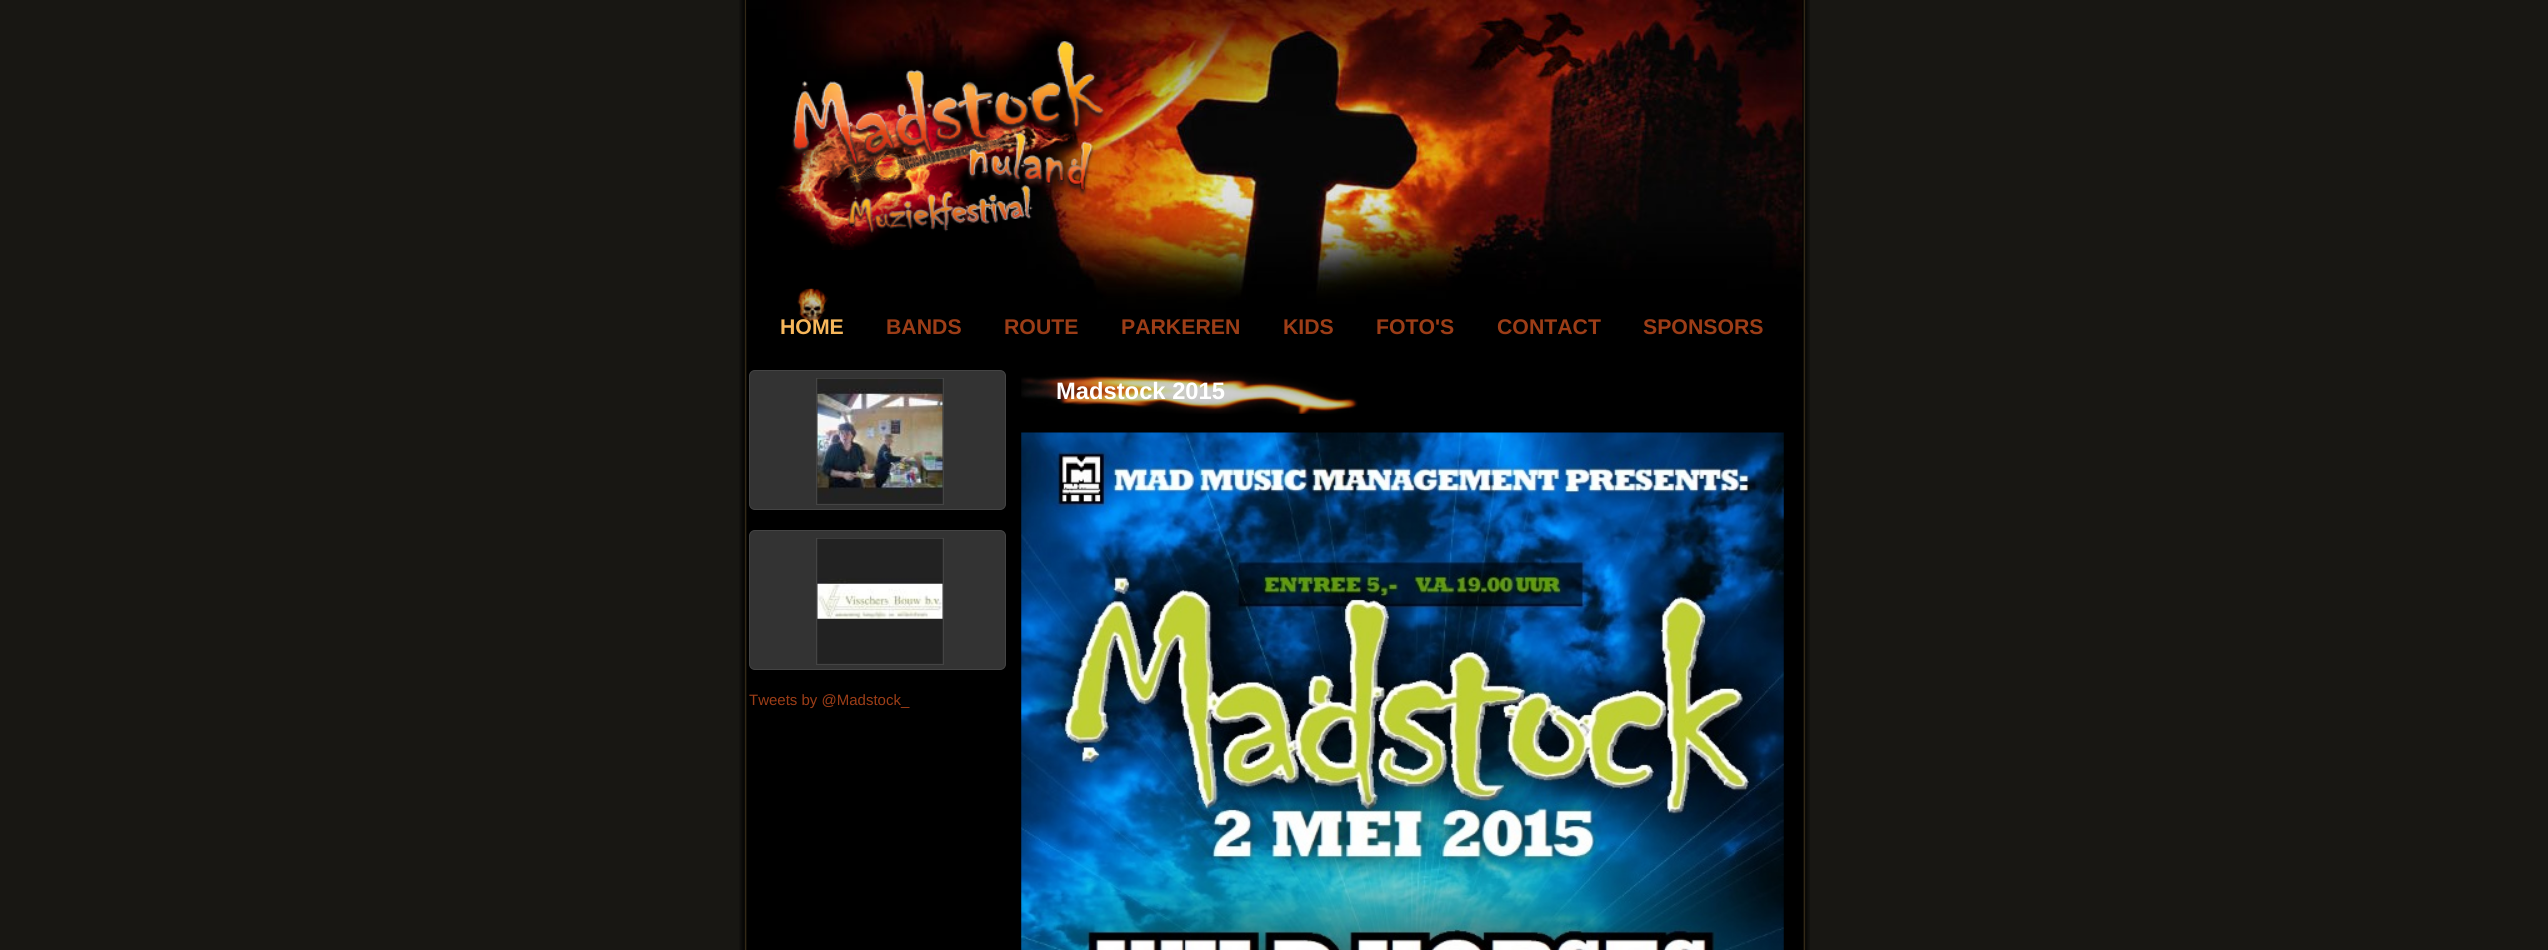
import math
import cairo

surface = cairo.ImageSurface(cairo.Format.RGB24, 2548, 950)
ctx = cairo.Context(surface)
options = cairo.FontOptions()
options.set_hint_metrics(cairo.HintMetrics.OFF)
options.set_hint_style(cairo.HintStyle.NONE)
ctx.set_font_options(options)
ctx.set_miter_limit(4)


def ink(r, g, b):
    ctx.set_source_rgb(r / 255, g / 255, b / 255)


def write(x, y, s, family, size, color, bold=False, italic=False):
    ctx.select_font_face(family, cairo.FontSlant.ITALIC if italic else cairo.FontSlant.NORMAL, cairo.FontWeight.BOLD if bold else cairo.FontWeight.NORMAL)
    ctx.set_font_size(size)
    ink(*color)
    ctx.move_to(x, y)
    ctx.show_text(s)


def round_path(x, y, w, h, r):
    ctx.new_sub_path()
    for i, (u, v) in enumerate([(x + w - r, y + h - r), (x + r, y + h - r), (x + r, y + r), (x + w - r, y + r)]):
        ctx.arc(u, v, r, i * math.pi / 2, (i + 1) * math.pi / 2)
    ctx.close_path()


def paste(path, x, y, w, h):
    ctx.save()
    ctx.set_source_surface(cairo.ImageSurface.create_from_png(path), x, y)
    ctx.rectangle(x, y, w, h)
    ctx.fill()
    ctx.restore()


s1 = dict(family="Liberation Sans", size=21.25, color=(247, 183, 91), bold=True)
s2 = dict(family="Liberation Sans", size=21.25, color=(156, 61, 23), bold=True)
s3 = dict(family="Liberation Sans", size=23.75, color=(255, 255, 255), bold=True)
s4 = dict(family="Liberation Sans", size=15, color=(156, 61, 23))

ink(24, 23, 19)
ctx.paint()
paste("pic1.png", 739, 0, 1071, 950)
paste("pic2.png", 746, 0, 1057, 320)
paste("pic3.png", 775, 41, 330, 209)
paste("pic4.png", 797, 288, 32, 35)
write(780, 334, "HOME", **s1)
write(886, 334, "BANDS", **s2)
write(1004, 334, "ROUTE", **s2)
write(1121, 334, "PARKEREN", **s2)
write(1283, 334, "KIDS", **s2)
write(1376, 334, "FOTO'S", **s2)
write(1497, 334, "CONTACT", **s2)
write(1643, 334, "SPONSORS", **s2)
paste("pic5.png", 1021, 370, 337, 44)
write(1056, 399, "Madstock 2015", **s3)
paste("pic6.png", 1021, 432, 763, 518)
ink(51, 51, 51)
round_path(749.5, 370.5, 256, 139, 5.5)
ctx.fill_preserve()
ink(68, 68, 68)
ctx.set_line_width(1)
ctx.stroke()
ctx.rectangle(816.5, 378.5, 127, 126)
ctx.stroke()
paste("pic7.png", 817, 378, 126, 126)
ink(51, 51, 51)
round_path(749.5, 530.5, 256, 139, 5.5)
ctx.fill_preserve()
ink(68, 68, 68)
ctx.stroke()
ctx.rectangle(816.5, 538.5, 127, 126)
ctx.stroke()
paste("pic8.png", 817, 538, 126, 126)
write(749, 705, "Tweets by @Madstock_", **s4)
surface.write_to_png("screenshot.png")
